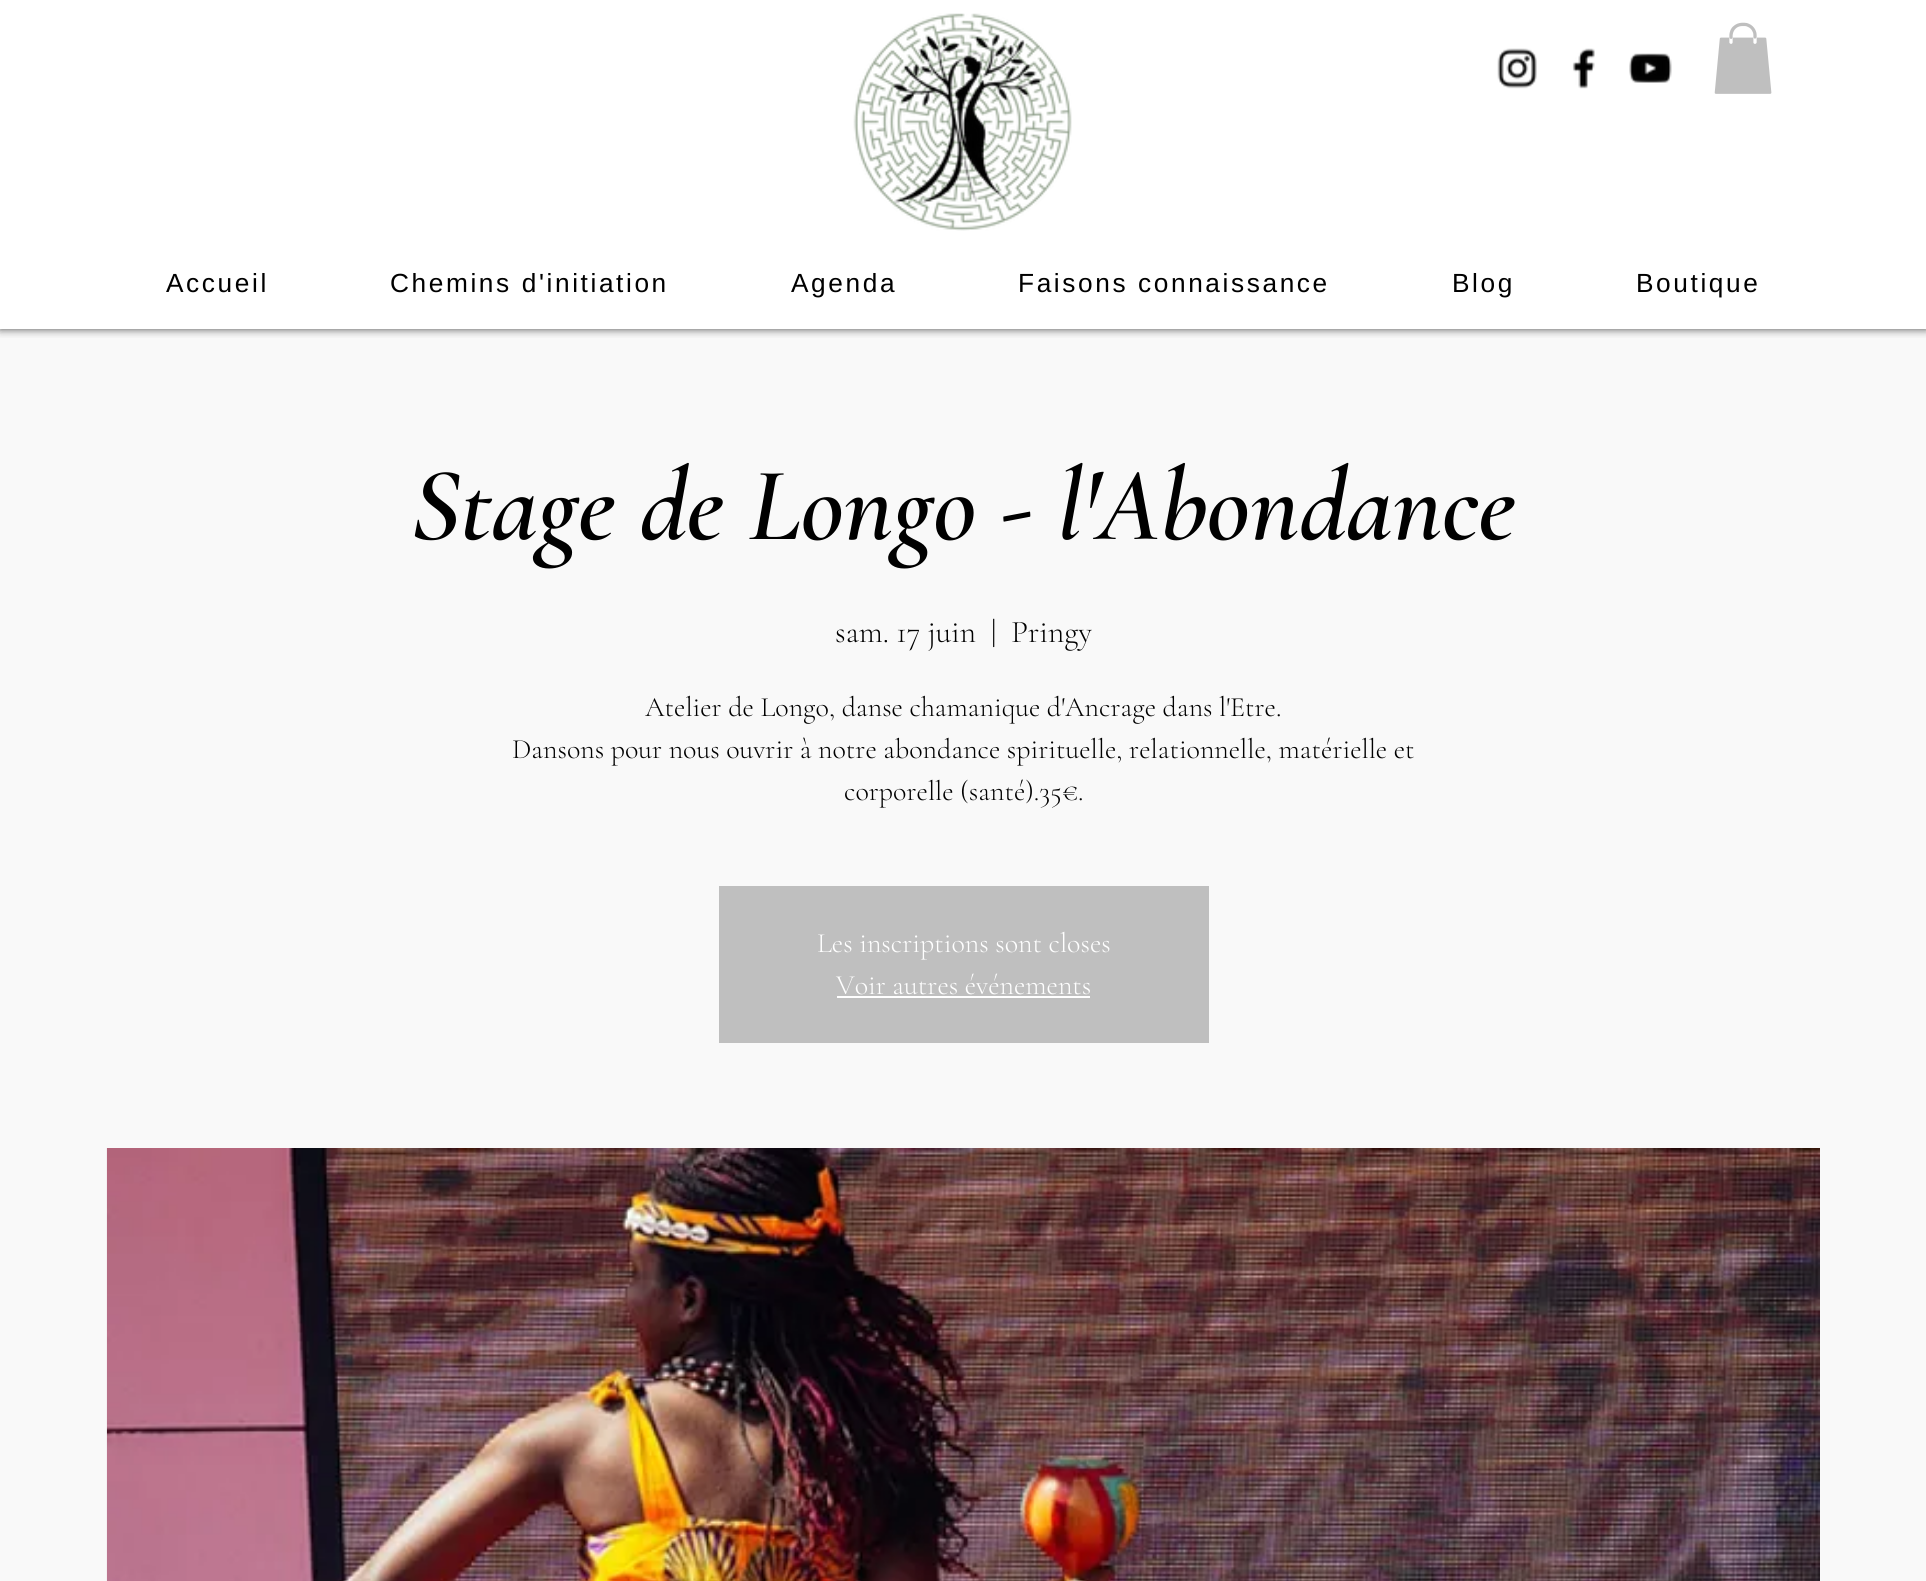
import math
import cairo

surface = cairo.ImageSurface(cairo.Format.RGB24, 1926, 1581)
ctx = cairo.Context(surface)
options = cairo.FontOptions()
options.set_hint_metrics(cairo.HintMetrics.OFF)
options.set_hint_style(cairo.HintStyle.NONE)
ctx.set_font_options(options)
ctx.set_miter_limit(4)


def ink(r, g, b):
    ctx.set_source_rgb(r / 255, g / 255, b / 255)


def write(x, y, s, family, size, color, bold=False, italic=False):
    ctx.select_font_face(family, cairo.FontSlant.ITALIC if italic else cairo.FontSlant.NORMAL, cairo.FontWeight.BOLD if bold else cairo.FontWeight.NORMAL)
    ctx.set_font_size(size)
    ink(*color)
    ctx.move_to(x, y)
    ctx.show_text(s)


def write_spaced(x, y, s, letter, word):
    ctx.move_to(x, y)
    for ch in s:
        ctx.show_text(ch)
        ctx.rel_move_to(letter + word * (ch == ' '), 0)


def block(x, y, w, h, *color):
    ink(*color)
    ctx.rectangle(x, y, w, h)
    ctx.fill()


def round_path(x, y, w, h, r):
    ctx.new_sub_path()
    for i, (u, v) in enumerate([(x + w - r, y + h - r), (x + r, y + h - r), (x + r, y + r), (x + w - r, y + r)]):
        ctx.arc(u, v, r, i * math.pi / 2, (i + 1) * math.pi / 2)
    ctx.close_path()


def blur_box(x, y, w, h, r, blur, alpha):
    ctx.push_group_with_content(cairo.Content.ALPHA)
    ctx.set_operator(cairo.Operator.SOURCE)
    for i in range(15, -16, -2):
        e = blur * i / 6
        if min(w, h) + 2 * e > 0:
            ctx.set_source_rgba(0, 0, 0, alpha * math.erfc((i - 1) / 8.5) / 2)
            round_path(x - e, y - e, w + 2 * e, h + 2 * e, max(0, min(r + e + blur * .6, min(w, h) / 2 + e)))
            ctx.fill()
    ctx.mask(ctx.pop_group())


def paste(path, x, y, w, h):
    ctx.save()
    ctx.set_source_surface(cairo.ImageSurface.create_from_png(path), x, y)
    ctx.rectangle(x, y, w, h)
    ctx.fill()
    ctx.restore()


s1 = dict(family="Cormorant Garamond SemiBold", size=105, color=(0, 0, 0), italic=True)
s2 = dict(family="Cormorant Garamond Light", size=31.5, color=(0, 0, 0))
s3 = dict(family="Cormorant Garamond Light", size=28, color=(0, 0, 0))
s4 = dict(family="Cormorant Garamond Light", size=28, color=(255, 255, 255))

ink(255, 255, 255)
ctx.paint()
block(0, 329, 1926, 1252, 249, 249, 249)
ctx.save()
ctx.rectangle(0, 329, 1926, 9)
ctx.clip()
ink(0, 0, 0)
blur_box(0, 0, 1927, 329, 0, 4.5, 0.7)
ctx.restore()
paste("pic1.png", 853, 13, 219, 218)
paste("pic2.png", 1497, 48, 40, 41)
paste("pic3.png", 1572, 48, 23, 41)
paste("pic4.png", 1629, 53, 43, 30)
paste("pic5.png", 1714, 22, 58, 72)
ctx.select_font_face("Liberation Sans")
ctx.set_font_size(26.25)
ink(0, 0, 0)
write_spaced(166, 292, "Accueil", 2.6, 0)
write_spaced(390, 292, "Chemins d'initiation", 2.6, 0)
write_spaced(791, 292, "Agenda", 2.6, 0)
write_spaced(1018, 292, "Faisons connaissance", 2.6, 0)
write_spaced(1452, 292, "Blog", 2.6, 0)
write_spaced(1636, 292, "Boutique", 2.6, 0)
write(411, 539, "Stage de Longo - l'Abondance", **s1)
write(835, 642, "sam. 17 juin", **s2)
write(991, 642, "|", **s2)
write(1011, 642, "Pringy", **s2)
write(645, 716, "Atelier de Longo, danse chamanique d'Ancrage dans l'Etre.", **s3)
write(512, 758, "Dansons pour nous ouvrir à notre abondance spirituelle, relationnelle, matérielle et", **s3)
write(844, 800, "corporelle (santé).35€.", **s3)
block(719, 886, 490, 157, 191, 191, 191)
write(817, 952, "Les inscriptions sont closes", **s4)
write(836, 994, "Voir autres événements", **s4)
block(837, 996, 253, 2, 255, 255, 255)
paste("pic6.png", 106, 1148, 1714, 433)
surface.write_to_png("screenshot.png")
